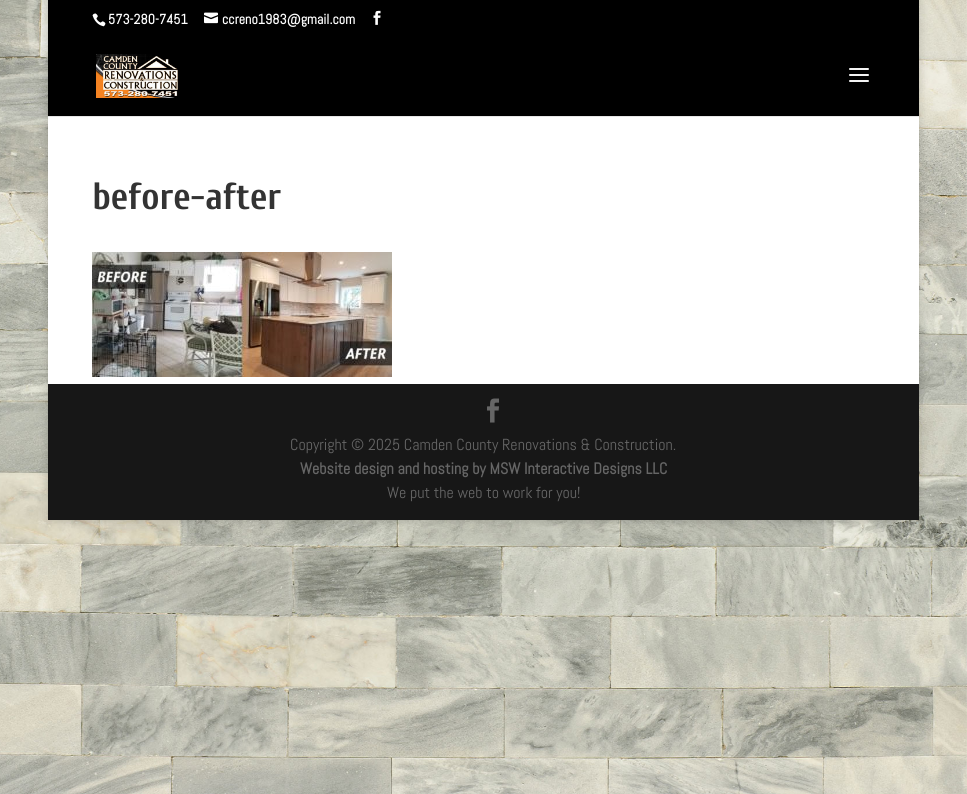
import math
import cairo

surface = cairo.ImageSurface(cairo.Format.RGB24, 967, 794)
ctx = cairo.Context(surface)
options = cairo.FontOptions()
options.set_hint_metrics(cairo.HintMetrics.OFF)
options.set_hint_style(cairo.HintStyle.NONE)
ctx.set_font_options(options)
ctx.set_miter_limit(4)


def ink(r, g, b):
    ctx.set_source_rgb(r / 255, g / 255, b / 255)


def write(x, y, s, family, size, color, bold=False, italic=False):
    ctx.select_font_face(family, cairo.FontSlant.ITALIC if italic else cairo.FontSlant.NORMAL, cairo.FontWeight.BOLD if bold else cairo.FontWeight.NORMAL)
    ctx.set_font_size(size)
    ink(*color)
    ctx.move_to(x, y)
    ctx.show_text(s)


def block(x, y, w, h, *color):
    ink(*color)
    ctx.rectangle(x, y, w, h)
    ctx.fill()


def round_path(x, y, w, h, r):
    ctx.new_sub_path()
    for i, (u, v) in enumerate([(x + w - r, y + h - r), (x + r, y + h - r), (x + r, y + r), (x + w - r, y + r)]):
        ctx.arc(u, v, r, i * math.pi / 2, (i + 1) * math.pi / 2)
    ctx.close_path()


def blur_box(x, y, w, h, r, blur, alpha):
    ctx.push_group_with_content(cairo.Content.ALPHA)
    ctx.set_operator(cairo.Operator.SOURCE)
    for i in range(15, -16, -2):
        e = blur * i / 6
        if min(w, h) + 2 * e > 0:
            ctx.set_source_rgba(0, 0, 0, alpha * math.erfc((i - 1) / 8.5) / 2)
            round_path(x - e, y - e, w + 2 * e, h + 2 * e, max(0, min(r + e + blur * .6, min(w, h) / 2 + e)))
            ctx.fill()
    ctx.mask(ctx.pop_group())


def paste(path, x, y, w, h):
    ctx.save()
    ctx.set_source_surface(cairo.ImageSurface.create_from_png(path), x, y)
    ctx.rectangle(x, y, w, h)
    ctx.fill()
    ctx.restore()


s1 = dict(family="Abel", size=14, color=(255, 255, 255), bold=True)
s2 = dict(family="Cuprum", size=38, color=(51, 51, 51), bold=True)
s3 = dict(family="Abel", size=16, color=(102, 102, 102))
s4 = dict(family="Abel", size=16, color=(102, 102, 102), bold=True)

ink(255, 255, 255)
ctx.paint()
paste("pic1.png", 0, 0, 967, 794)
ink(0, 0, 0)
blur_box(48, 0, 871, 520, 0, 5, 0.2)
block(48, 116, 871, 1, 230, 230, 230)
block(48, 0, 871, 116, 0, 0, 0)
paste("pic2.png", 96, 54, 82, 44)
paste("pic3.png", 849, 68, 20, 14)
paste("pic4.png", 92, 13, 14, 14)
write(108, 24, "573-280-7451", **s1)
paste("pic5.png", 204, 12, 14, 12)
write(222, 24, "ccreno1983@gmail.com", **s1)
paste("pic6.png", 373, 10, 8, 15)
block(48, 117, 871, 267, 255, 255, 255)
write(92, 209, "before-after", **s2)
paste("pic7.png", 92, 252, 300, 125)
block(48, 384, 871, 136, 23, 23, 23)
paste("pic8.png", 487, 398, 12, 25)
write(290, 450, "Copyright © 2025 Camden County Renovations & Construction.", **s3)
write(300, 474, "Website design and hosting by MSW Interactive Designs LLC", **s4)
write(387, 498, "We put the web to work for you!", **s3)
surface.write_to_png("screenshot.png")
